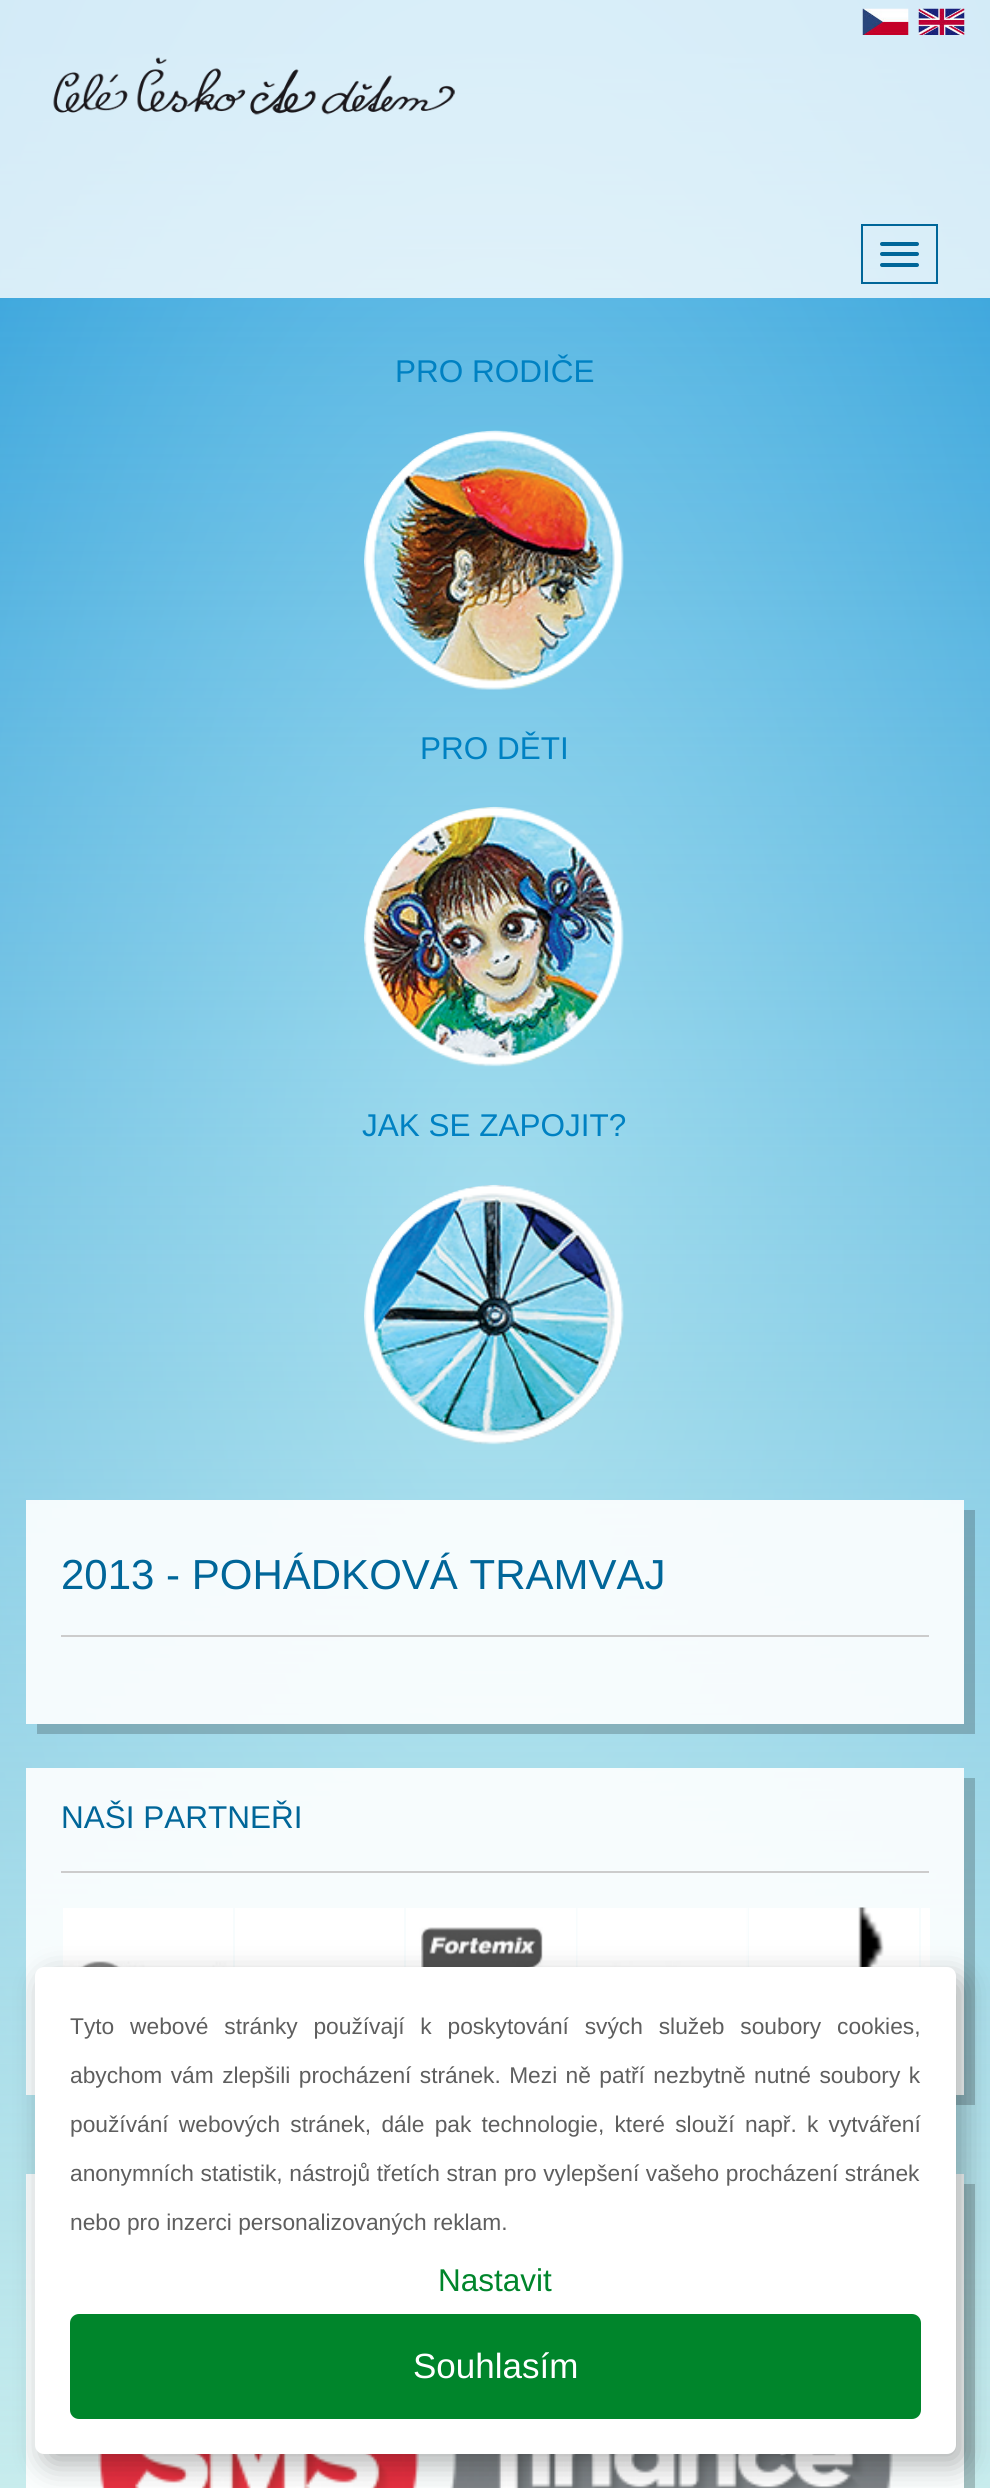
import math
import cairo

surface = cairo.ImageSurface(cairo.Format.RGB24, 990, 2488)
ctx = cairo.Context(surface)
options = cairo.FontOptions()
options.set_hint_metrics(cairo.HintMetrics.OFF)
options.set_hint_style(cairo.HintStyle.NONE)
ctx.set_font_options(options)
ctx.set_miter_limit(4)


def ink(r, g, b):
    ctx.set_source_rgb(r / 255, g / 255, b / 255)


def write(x, y, s, family, size, color, bold=False, italic=False):
    ctx.select_font_face(family, cairo.FontSlant.ITALIC if italic else cairo.FontSlant.NORMAL, cairo.FontWeight.BOLD if bold else cairo.FontWeight.NORMAL)
    ctx.set_font_size(size)
    ink(*color)
    ctx.move_to(x, y)
    ctx.show_text(s)


def write_spaced(x, y, s, letter, word):
    ctx.move_to(x, y)
    for ch in s:
        ctx.show_text(ch)
        ctx.rel_move_to(letter + word * (ch == ' '), 0)


def block(x, y, w, h, *color):
    ink(*color)
    ctx.rectangle(x, y, w, h)
    ctx.fill()


def round_path(x, y, w, h, r):
    ctx.new_sub_path()
    for i, (u, v) in enumerate([(x + w - r, y + h - r), (x + r, y + h - r), (x + r, y + r), (x + w - r, y + r)]):
        ctx.arc(u, v, r, i * math.pi / 2, (i + 1) * math.pi / 2)
    ctx.close_path()


def blur_box(x, y, w, h, r, blur, alpha):
    ctx.push_group_with_content(cairo.Content.ALPHA)
    ctx.set_operator(cairo.Operator.SOURCE)
    for i in range(15, -16, -2):
        e = blur * i / 6
        if min(w, h) + 2 * e > 0:
            ctx.set_source_rgba(0, 0, 0, alpha * math.erfc((i - 1) / 8.5) / 2)
            round_path(x - e, y - e, w + 2 * e, h + 2 * e, max(0, min(r + e + blur * .6, min(w, h) / 2 + e)))
            ctx.fill()
    ctx.mask(ctx.pop_group())


def paste(path, x, y, w, h):
    ctx.save()
    ctx.set_source_surface(cairo.ImageSurface.create_from_png(path), x, y)
    ctx.rectangle(x, y, w, h)
    ctx.fill()
    ctx.restore()


s1 = dict(family="Liberation Sans", size=31.5, color=(0, 129, 194))
s2 = dict(family="Liberation Sans", size=42, color=(0, 102, 153))
s3 = dict(family="Liberation Sans", size=31.5, color=(0, 102, 153))
s4 = dict(family="Liberation Sans", size=22.75, color=(94, 94, 94))
s5 = dict(family="Liberation Sans", size=31.5, color=(0, 133, 43))
s6 = dict(family="Liberation Sans", size=35, color=(255, 255, 255))

ink(255, 255, 255)
ctx.paint()
gradient = cairo.RadialGradient(0, 0, 0, 0, 0, 1)
gradient.set_matrix(cairo.Matrix(1 / 700, 0, 0, 1 / 1760, -1 * 495 / 700, -1 * 1244 / 1760))
gradient.add_color_stop_rgba(0, 0.498, 0.808, 0.933, 1)
gradient.add_color_stop_rgba(1, 0.141, 0.6, 0.851, 1)
ctx.set_source(gradient)
ctx.rectangle(0, 0, 990, 2474)
ctx.fill()
gradient = cairo.LinearGradient(495, 0, 495, 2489)
gradient.add_color_stop_rgba(0, 0.78, 0.925, 0.929, 0)
gradient.add_color_stop_rgba(1, 0.78, 0.925, 0.929, 1)
ctx.set_source(gradient)
ctx.rectangle(0, 54, 990, 2434)
ctx.fill()
ctx.set_source_rgba(1, 1, 1, 0.8)
ctx.rectangle(0, 0, 990, 298)
ctx.fill()
paste("pic1.png", 862, 8, 47, 27)
paste("pic2.png", 918, 8, 47, 27)
paste("pic3.png", 53, 57, 402, 58)
ctx.rectangle(862, 225, 75, 58)
ink(0, 102, 153)
ctx.stroke()
round_path(880, 242, 39, 4, 2)
ctx.fill()
round_path(880, 252, 39, 4, 2)
ctx.fill()
round_path(880, 263, 39, 4, 2)
ctx.fill()
write(395, 382, "PRO RODIČE", **s1)
paste("pic4.png", 364, 430, 260, 260)
write(420, 759, "PRO DĚTI", **s1)
paste("pic5.png", 364, 806, 260, 261)
write(362, 1136, "JAK SE ZAPOJIT?", **s1)
paste("pic6.png", 364, 1184, 260, 261)
ctx.set_source_rgba(0, 0, 0, 0.2)
ctx.new_path()
ctx.move_to(37, 1724)
ctx.line_to(37, 1734)
ctx.line_to(975, 1734)
ctx.line_to(975, 1510)
ctx.line_to(964, 1510)
ctx.line_to(964, 1724)
ctx.close_path()
ctx.fill()
ctx.set_source_rgba(1, 1, 1, 0.9)
ctx.rectangle(26, 1500, 938, 224)
ctx.fill()
write(61, 1589, "2013 - POHÁDKOVÁ TRAMVAJ", **s2)
block(61, 1635, 868, 2, 204, 204, 204)
ctx.set_source_rgba(0, 0, 0, 0.2)
ctx.new_path()
ctx.move_to(37, 2095)
ctx.line_to(37, 2105)
ctx.line_to(975, 2105)
ctx.line_to(975, 1778)
ctx.line_to(964, 1778)
ctx.line_to(964, 2095)
ctx.close_path()
ctx.fill()
ctx.set_source_rgba(1, 1, 1, 0.9)
ctx.rectangle(26, 1768, 938, 327)
ctx.fill()
write(61, 1828, "NAŠI PARTNEŘI", **s3)
block(61, 1871, 868, 2, 204, 204, 204)
block(63, 1908, 170, 59, 255, 255, 255)
paste("pic7.png", 63, 1961, 169, 6)
block(235, 1908, 169, 59, 255, 255, 255)
block(406, 1908, 170, 59, 255, 255, 255)
paste("pic8.png", 406, 1927, 169, 40)
paste("pic9.png", 577, 1908, 171, 59)
block(749, 1908, 170, 59, 255, 255, 255)
paste("pic10.png", 858, 1907, 26, 60)
paste("pic11.png", 921, 1908, 9, 59)
ctx.set_source_rgba(0, 0, 0, 0.2)
ctx.new_path()
ctx.move_to(37, 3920)
ctx.line_to(37, 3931)
ctx.line_to(975, 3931)
ctx.line_to(975, 2184)
ctx.line_to(964, 2184)
ctx.line_to(964, 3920)
ctx.close_path()
ctx.fill()
ctx.set_source_rgba(1, 1, 1, 0.9)
ctx.rectangle(26, 2174, 938, 314)
ctx.fill()
paste("pic12.png", 98, 2454, 795, 34)
ink(0, 0, 0)
blur_box(44, 1978, 920, 486, 9, 15, 0.3)
ink(255, 255, 255)
round_path(35, 1967, 921, 487, 9)
ctx.fill()
ctx.set_font_size(22.75)
ink(94, 94, 94)
write_spaced(70, 2034, "Tyto webové stránky používají k poskytování svých služeb soubory cookies,", 0, 9.5)
write_spaced(70, 2083, "abychom vám zlepšili procházení stránek. Mezi ně patří nezbytně nutné soubory k", 0, 2.1)
write_spaced(70, 2132, "používání webových stránek, dále pak technologie, které slouží např. k vytváření", 0, 3.9)
write_spaced(70, 2181, "anonymních statistik, nástrojů třetích stran pro vylepšení vašeho procházení stránek", 0, 0.25)
write(70, 2230, "nebo pro inzerci personalizovaných reklam.", **s4)
write(438, 2291, "Nastavit", **s5)
round_path(70, 2314, 851, 105, 9)
ctx.fill()
write(413, 2378, "Souhlasím", **s6)
surface.write_to_png("screenshot.png")
